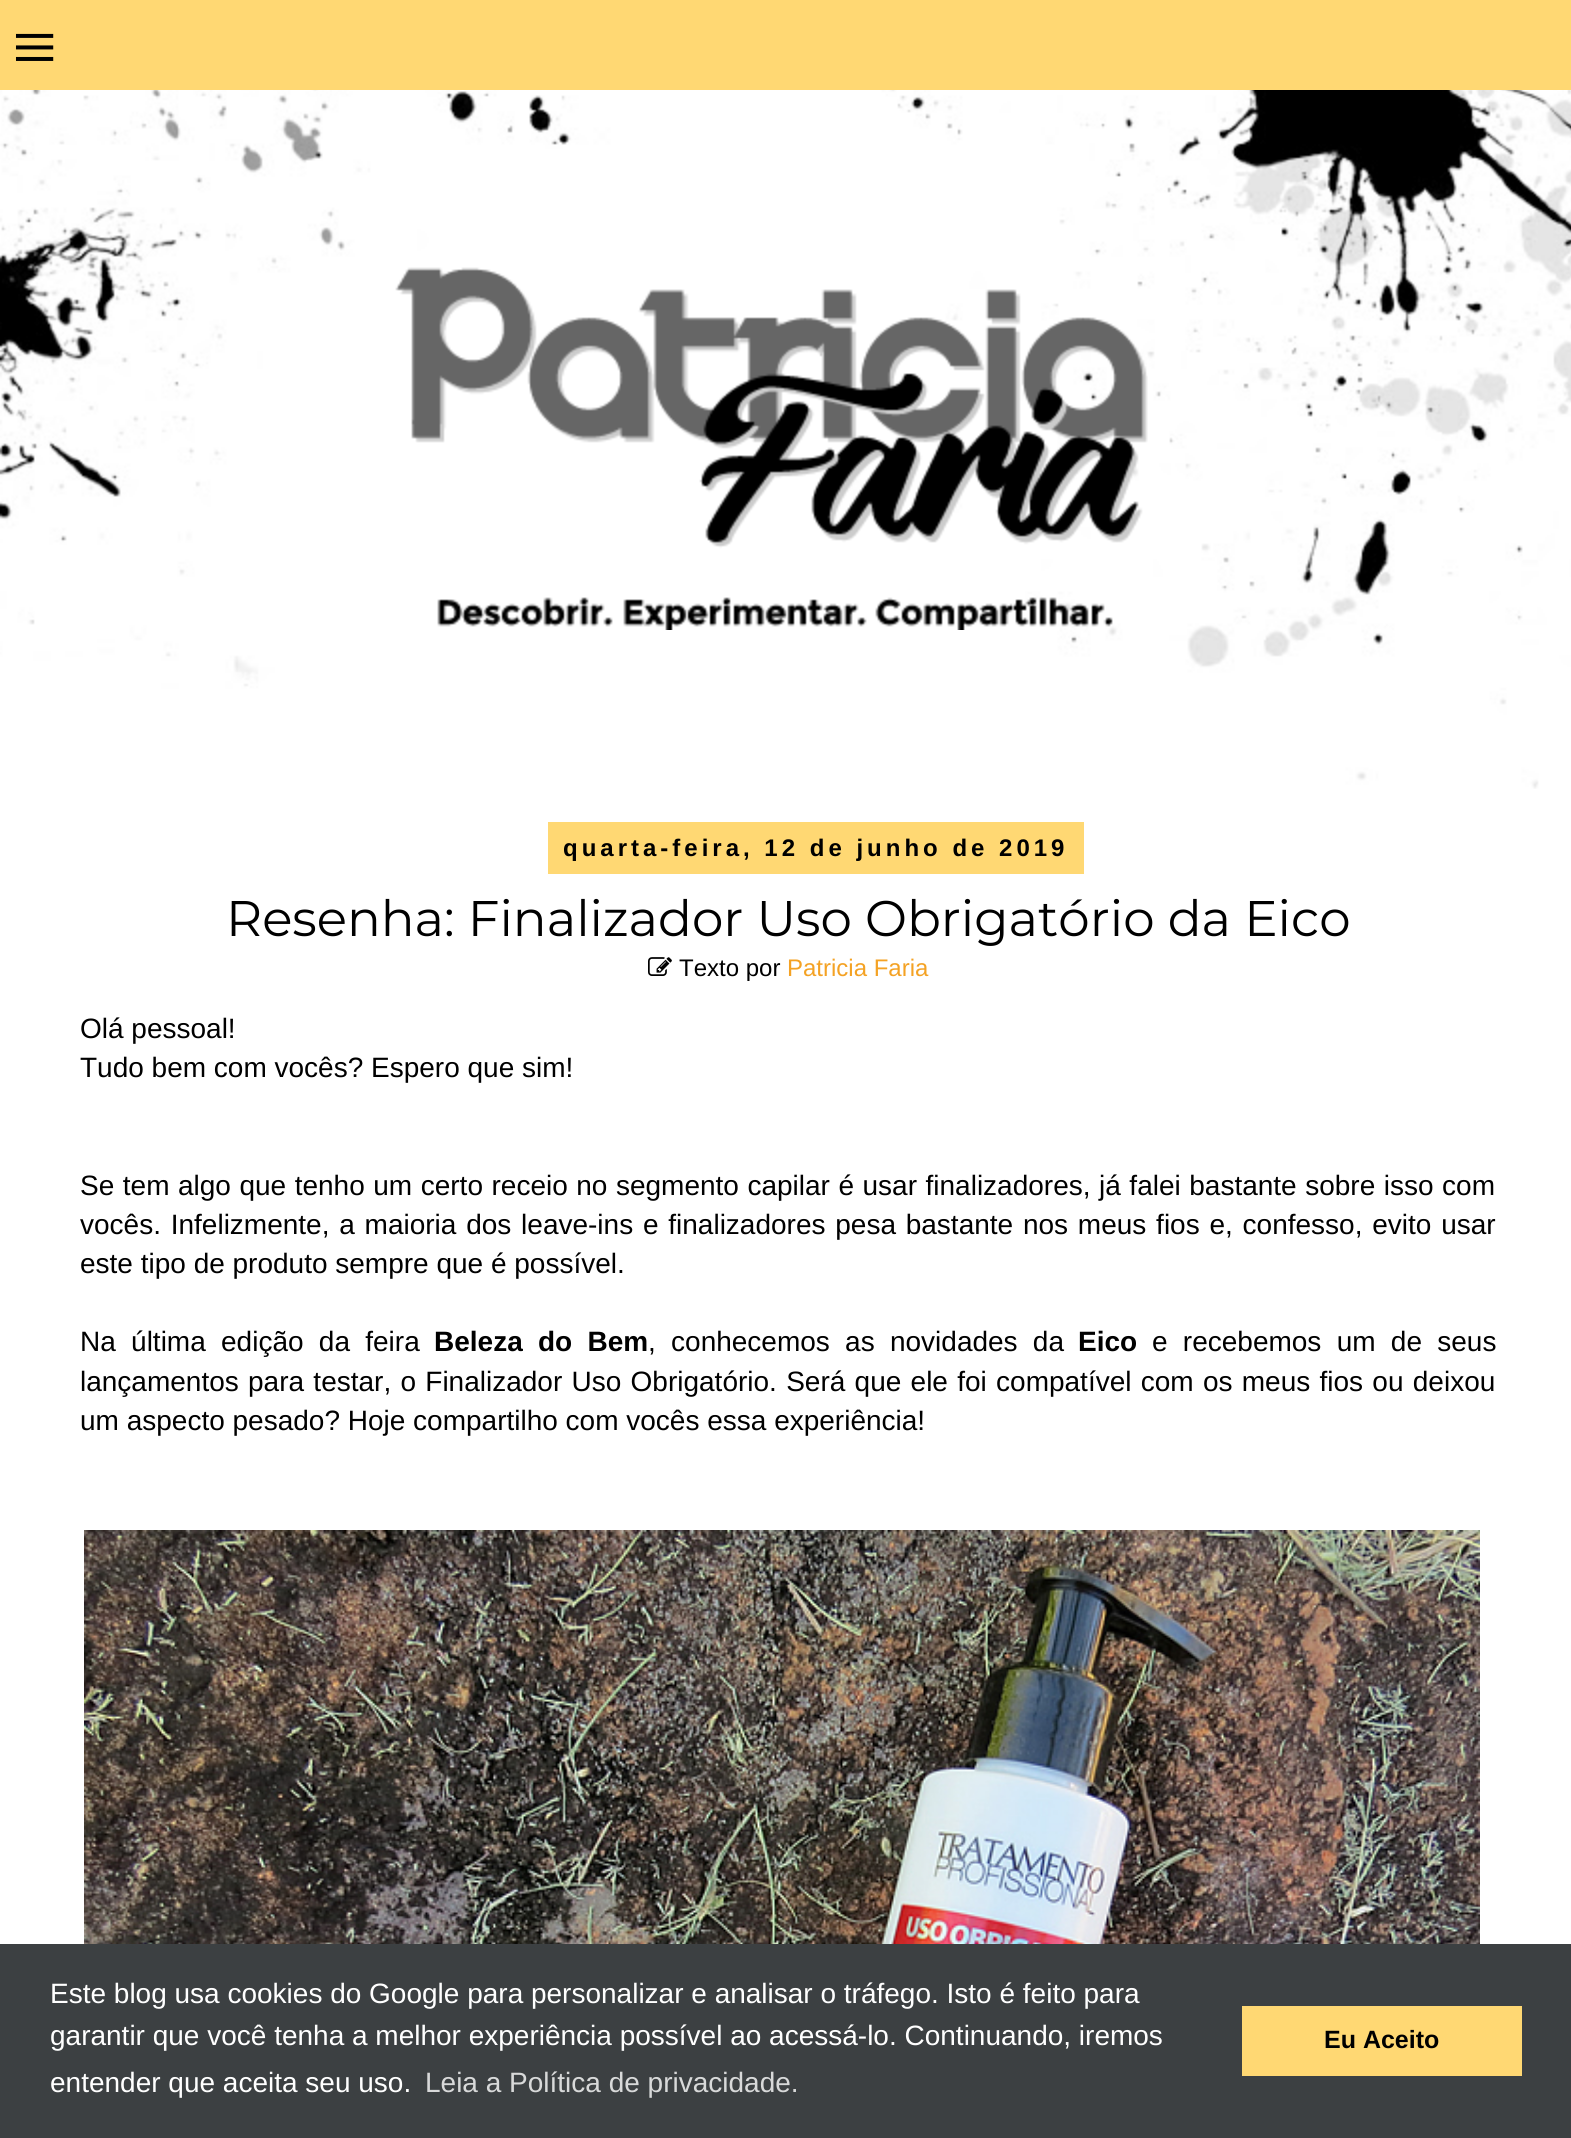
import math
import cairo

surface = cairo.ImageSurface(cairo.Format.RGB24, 1571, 2138)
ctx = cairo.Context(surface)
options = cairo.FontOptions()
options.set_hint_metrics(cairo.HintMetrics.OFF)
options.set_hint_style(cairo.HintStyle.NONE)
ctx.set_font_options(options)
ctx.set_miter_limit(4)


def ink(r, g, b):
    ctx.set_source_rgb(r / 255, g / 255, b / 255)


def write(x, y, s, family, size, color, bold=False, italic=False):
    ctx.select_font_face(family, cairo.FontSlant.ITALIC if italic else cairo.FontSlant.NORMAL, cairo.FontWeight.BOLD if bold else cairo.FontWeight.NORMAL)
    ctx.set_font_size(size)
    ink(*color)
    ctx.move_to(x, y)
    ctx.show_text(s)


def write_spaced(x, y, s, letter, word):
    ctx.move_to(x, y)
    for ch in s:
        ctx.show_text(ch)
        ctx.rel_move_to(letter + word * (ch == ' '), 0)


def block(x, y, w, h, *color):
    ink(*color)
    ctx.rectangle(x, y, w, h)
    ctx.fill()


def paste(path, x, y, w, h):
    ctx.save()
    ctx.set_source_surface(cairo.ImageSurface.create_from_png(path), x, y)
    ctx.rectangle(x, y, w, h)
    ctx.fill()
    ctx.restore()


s1 = dict(family="Liberation Serif", size=80, color=(0, 0, 0))
s2 = dict(family="Montserrat Thin", size=50, color=(0, 0, 0))
s3 = dict(family="Liberation Sans", size=24, color=(0, 0, 0))
s4 = dict(family="Liberation Sans", size=24, color=(244, 162, 36))
s5 = dict(family="Liberation Sans", size=28, color=(0, 0, 0))
s6 = dict(family="Liberation Sans", size=28, color=(0, 0, 0), bold=True)
s7 = dict(family="Liberation Sans", size=28, color=(255, 255, 255))
s8 = dict(family="Liberation Sans", size=28, color=(216, 217, 217))
s9 = dict(family="Liberation Sans", size=25, color=(0, 0, 0), bold=True)

ink(255, 255, 255)
ctx.paint()
paste("pic1.png", 0, 90, 1571, 699)
block(0, 0, 1571, 90, 255, 216, 115)
write(12, 74, "≡", **s1)
paste("pic2.png", 395, 267, 753, 363)
block(548, 822, 536, 52, 255, 216, 115)
ctx.select_font_face("Liberation Sans", cairo.FontSlant.NORMAL, cairo.FontWeight.BOLD)
ctx.set_font_size(24)
ink(0, 0, 0)
write_spaced(563, 856, "quarta-feira, 12 de junho de 2019", 4, 0)
write(226, 936, "Resenha: Finalizador Uso Obrigatório da Eico", **s2)
paste("pic3.png", 648, 957, 24, 19)
write(679, 976, "Texto por", **s3)
write(787, 976, "Patricia Faria", **s4)
write(80, 1038, "Olá pessoal!", **s5)
write(80, 1077, "Tudo bem com vocês? Espero que sim!", **s5)
write_spaced(80, 1195, "Se tem algo que tenho um certo receio no segmento capilar é usar finalizadores, já falei bastante sobre isso com", 0, 0.75)
write_spaced(80, 1234, "vocês. Infelizmente, a maioria dos leave-ins e finalizadores pesa bastante nos meus fios e, confesso, evito usar", 0, 2)
write(80, 1273, "este tipo de produto sempre que é possível.", **s5)
write_spaced(80, 1351, "Na última edição da feira", 0, 7.5)
ctx.select_font_face("Liberation Sans", cairo.FontSlant.NORMAL, cairo.FontWeight.BOLD)
write_spaced(434, 1351, "Beleza do Bem", 0, 7.5)
ctx.select_font_face("Liberation Sans")
write_spaced(648, 1351, ", conhecemos as novidades da", 0, 7.5)
write(1078, 1351, "Eico", **s6)
ctx.select_font_face("Liberation Sans")
write_spaced(1152, 1351, "e recebemos um de seus", 0, 7.5)
write_spaced(80, 1391, "lançamentos para testar, o Finalizador Uso Obrigatório. Será que ele foi compatível com os meus fios ou deixou", 0, 1.5)
write(80, 1430, "um aspecto pesado? Hoje compartilho com vocês essa experiência!", **s5)
paste("pic4.png", 84, 1530, 1396, 414)
block(0, 1944, 1571, 194, 60, 64, 66)
write(50, 2003, "Este blog usa cookies do Google para personalizar e analisar o tráfego. Isto é feito para", **s7)
write(50, 2045, "garantir que você tenha a melhor experiência possível ao acessá-lo. Continuando, iremos", **s7)
write(50, 2092, "entender que aceita seu uso.", **s7)
write(425, 2092, "Leia a Política de privacidade.", **s8)
block(1242, 2006, 280, 70, 255, 216, 115)
write(1324, 2048, "Eu Aceito", **s9)
surface.write_to_png("screenshot.png")
